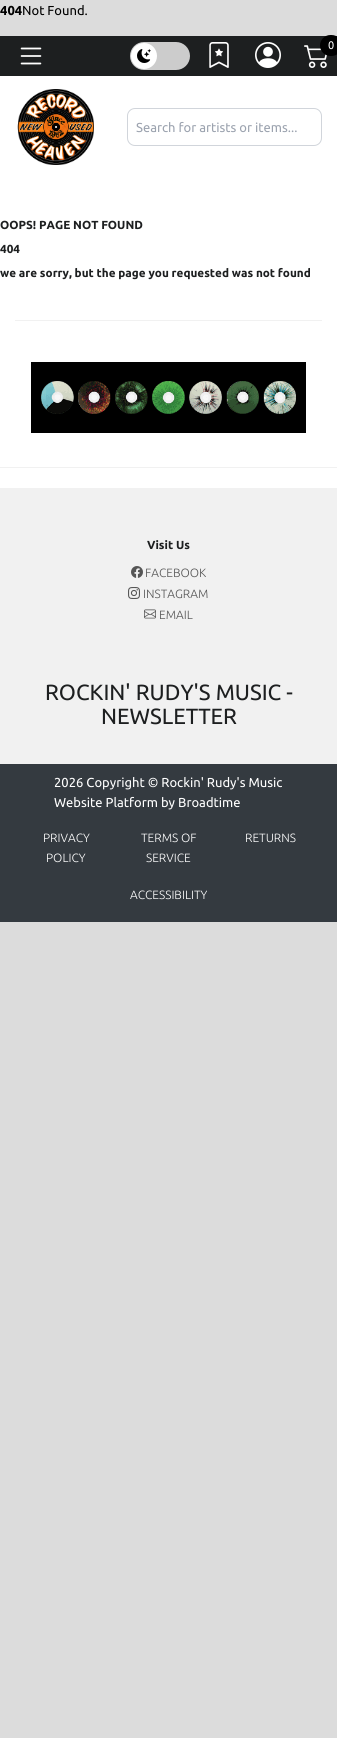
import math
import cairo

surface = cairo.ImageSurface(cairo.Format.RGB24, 337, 1738)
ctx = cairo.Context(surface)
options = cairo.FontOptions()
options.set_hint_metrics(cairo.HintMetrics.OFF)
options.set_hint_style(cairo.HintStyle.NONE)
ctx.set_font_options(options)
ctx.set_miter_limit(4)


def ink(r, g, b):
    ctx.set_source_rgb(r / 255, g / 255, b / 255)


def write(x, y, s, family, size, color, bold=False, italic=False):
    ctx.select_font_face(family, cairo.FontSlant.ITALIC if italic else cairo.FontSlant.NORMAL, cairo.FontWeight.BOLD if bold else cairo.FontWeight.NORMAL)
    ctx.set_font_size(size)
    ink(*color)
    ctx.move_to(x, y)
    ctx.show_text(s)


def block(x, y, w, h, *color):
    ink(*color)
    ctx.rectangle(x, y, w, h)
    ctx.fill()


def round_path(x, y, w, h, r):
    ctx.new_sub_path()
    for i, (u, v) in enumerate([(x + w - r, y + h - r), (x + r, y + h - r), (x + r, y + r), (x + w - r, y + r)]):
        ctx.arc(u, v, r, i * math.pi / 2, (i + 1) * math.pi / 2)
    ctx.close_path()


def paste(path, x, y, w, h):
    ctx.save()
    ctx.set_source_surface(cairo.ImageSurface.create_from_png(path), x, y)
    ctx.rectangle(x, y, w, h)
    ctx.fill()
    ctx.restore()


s1 = dict(family="Ubuntu", size=13, color=(0, 0, 0), bold=True)
s2 = dict(family="Ubuntu", size=13, color=(0, 0, 0))
s3 = dict(family="Ubuntu", size=11, color=(255, 255, 255))
s4 = dict(family="Ubuntu", size=13, color=(156, 163, 175))
s5 = dict(family="Ubuntu", size=11.7, color=(29, 31, 32), bold=True)
s6 = dict(family="Ubuntu Light", size=12, color=(85, 85, 85))
s7 = dict(family="Ubuntu", size=22, color=(29, 31, 32))
s8 = dict(family="Ubuntu", size=13, color=(255, 255, 255))
s9 = dict(family="Ubuntu Light", size=12, color=(255, 255, 255))

ink(220, 220, 220)
ctx.paint()
write(0, 15, "404", **s1)
write(22, 15, "Not Found.", **s2)
block(0, 76, 337, 412, 255, 255, 255)
block(0, 36, 337, 40, 29, 31, 32)
paste("pic1.png", 20, 47, 22, 18)
ink(204, 204, 204)
round_path(130, 42, 60, 28, 14)
ctx.fill()
ink(255, 255, 255)
ctx.arc(144, 56, 13, 0, 2 * math.pi)
ctx.fill()
paste("pic2.png", 137, 49, 14, 14)
paste("pic3.png", 209, 42, 20, 26)
paste("pic4.png", 255, 42, 26, 26)
paste("pic5.png", 304, 45, 23, 23)
ink(0, 0, 0)
round_path(320, 35, 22, 21, 10.5)
ctx.fill()
write(328, 49, "0", **s3)
paste("pic6.png", 17, 89, 77, 76)
round_path(127.5, 108.5, 194, 37, 7.5)
ink(209, 213, 219)
ctx.set_line_width(1)
ctx.stroke()
write(136, 132, "Search for artists or items...", **s4)
write(0, 229, "OOPS! PAGE NOT FOUND", **s5)
write(0, 253, "404", **s5)
write(0, 277, "we are sorry, but the page you requested was not found", **s5)
block(15, 320, 307, 1, 241, 241, 241)
paste("pic7.png", 31, 362, 275, 71)
block(0, 467, 337, 1, 241, 241, 241)
block(0, 488, 337, 276, 241, 241, 241)
write(147, 549, "Visit Us", **s5)
paste("pic8.png", 131, 566, 12, 12)
write(145, 577, "FACEBOOK", **s6)
paste("pic9.png", 128, 587, 12, 12)
write(143, 598, "INSTAGRAM", **s6)
paste("pic10.png", 144, 609, 12, 10)
write(159, 619, "EMAIL", **s6)
write(45, 700, "ROCKIN' RUDY'S MUSIC -", **s7)
write(101, 724, "NEWSLETTER", **s7)
block(0, 764, 337, 158, 52, 58, 64)
write(54, 787, "2026 Copyright © Rockin' Rudy's Music", **s8)
write(54, 807, "Website Platform by Broadtime", **s8)
write(43, 842, "PRIVACY", **s9)
write(46, 862, "POLICY", **s9)
write(141, 842, "TERMS OF", **s9)
write(146, 862, "SERVICE", **s9)
write(245, 842, "RETURNS", **s9)
write(130, 899, "ACCESSIBILITY", **s9)
surface.write_to_png("screenshot.png")
